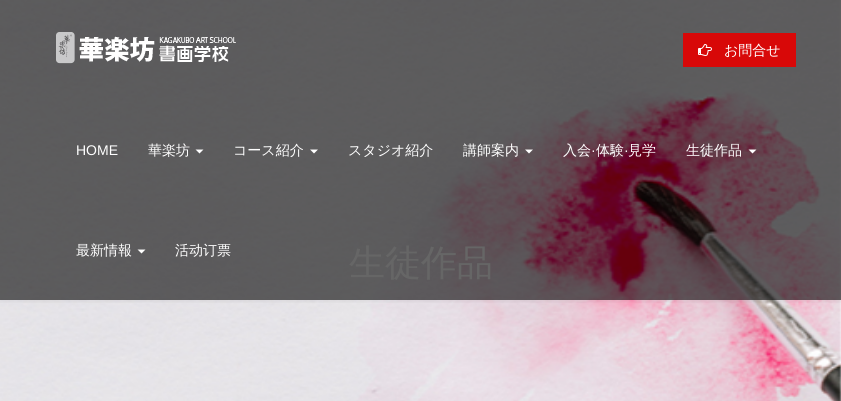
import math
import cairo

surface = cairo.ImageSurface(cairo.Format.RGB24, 841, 401)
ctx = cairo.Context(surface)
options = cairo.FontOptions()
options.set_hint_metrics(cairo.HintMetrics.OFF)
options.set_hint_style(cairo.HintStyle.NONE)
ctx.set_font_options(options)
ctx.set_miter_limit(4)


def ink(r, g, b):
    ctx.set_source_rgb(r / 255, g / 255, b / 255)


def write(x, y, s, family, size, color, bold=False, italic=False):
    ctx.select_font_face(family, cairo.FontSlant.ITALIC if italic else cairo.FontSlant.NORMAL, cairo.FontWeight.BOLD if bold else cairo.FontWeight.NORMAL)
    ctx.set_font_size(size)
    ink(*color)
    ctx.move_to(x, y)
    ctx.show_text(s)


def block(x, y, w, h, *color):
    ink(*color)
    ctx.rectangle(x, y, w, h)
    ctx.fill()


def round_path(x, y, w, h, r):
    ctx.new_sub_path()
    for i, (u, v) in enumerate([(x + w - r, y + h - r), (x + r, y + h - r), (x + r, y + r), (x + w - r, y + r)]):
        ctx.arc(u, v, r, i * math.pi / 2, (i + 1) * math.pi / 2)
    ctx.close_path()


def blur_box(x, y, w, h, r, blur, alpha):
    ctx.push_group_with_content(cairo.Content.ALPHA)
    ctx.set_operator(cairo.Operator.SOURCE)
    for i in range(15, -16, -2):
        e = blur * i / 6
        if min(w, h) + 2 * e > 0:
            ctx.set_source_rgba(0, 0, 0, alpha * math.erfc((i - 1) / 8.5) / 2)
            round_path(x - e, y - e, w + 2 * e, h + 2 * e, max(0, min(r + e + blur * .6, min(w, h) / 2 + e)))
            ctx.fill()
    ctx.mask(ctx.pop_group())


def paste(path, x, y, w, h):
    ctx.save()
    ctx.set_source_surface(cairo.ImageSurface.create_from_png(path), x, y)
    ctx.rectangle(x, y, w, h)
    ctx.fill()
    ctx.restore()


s1 = dict(family="WenQuanYi Zen Hei Medium", size=36, color=(255, 255, 255))
s2 = dict(family="WenQuanYi Zen Hei Medium", size=14, color=(255, 255, 255))
s3 = dict(family="Liberation Sans", size=14, color=(255, 255, 255))

ink(255, 255, 255)
ctx.paint()
paste("pic3.png", 0, 0, 841, 401)
ctx.save()
ctx.rectangle(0, 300, 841, 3)
ctx.clip()
ink(0, 0, 0)
blur_box(0, 0, 841, 300, 0, 3, 0.1)
ctx.restore()
write(349, 275, "生徒作品", **s1)
ctx.set_source_rgba(0, 0, 0, 0.6)
ctx.rectangle(0, 0, 841, 300)
ctx.fill()
paste("pic1.png", 56, 32, 180, 32)
block(683, 33, 113, 34, 216, 8, 8)
paste("pic2.png", 698, 44, 14, 12)
write(724, 55, "お問合せ", **s2)
write(76, 155, "HOME", **s3)
write(148, 155, "華楽坊", **s2)
ctx.new_path()
ctx.move_to(195.5, 149.5)
ctx.line_to(203.5, 149.5)
ctx.line_to(199.5, 153.5)
ctx.close_path()
ctx.fill()
write(233, 155, "コース紹介", **s2)
ctx.new_path()
ctx.move_to(310, 149.5)
ctx.line_to(318, 149.5)
ctx.line_to(314, 153.5)
ctx.close_path()
ctx.fill()
write(348, 155, "スタジオ紹介", **s2)
write(463, 155, "講師案内", **s2)
ctx.new_path()
ctx.move_to(525, 149.5)
ctx.line_to(533, 149.5)
ctx.line_to(529, 153.5)
ctx.close_path()
ctx.fill()
write(563, 155, "入会", **s2)
write(591, 155, "·", **s3)
write(596, 155, "体験", **s2)
write(624, 155, "·", **s3)
write(628, 155, "見学", **s2)
write(686, 155, "生徒作品", **s2)
ctx.new_path()
ctx.move_to(748.5, 149.5)
ctx.line_to(756.5, 149.5)
ctx.line_to(752.5, 153.5)
ctx.close_path()
ctx.fill()
write(76, 255, "最新情報", **s2)
ctx.new_path()
ctx.move_to(137.5, 249.5)
ctx.line_to(145.5, 249.5)
ctx.line_to(141.5, 253.5)
ctx.close_path()
ctx.fill()
write(175, 255, "活动订票", **s2)
surface.write_to_png("screenshot.png")
